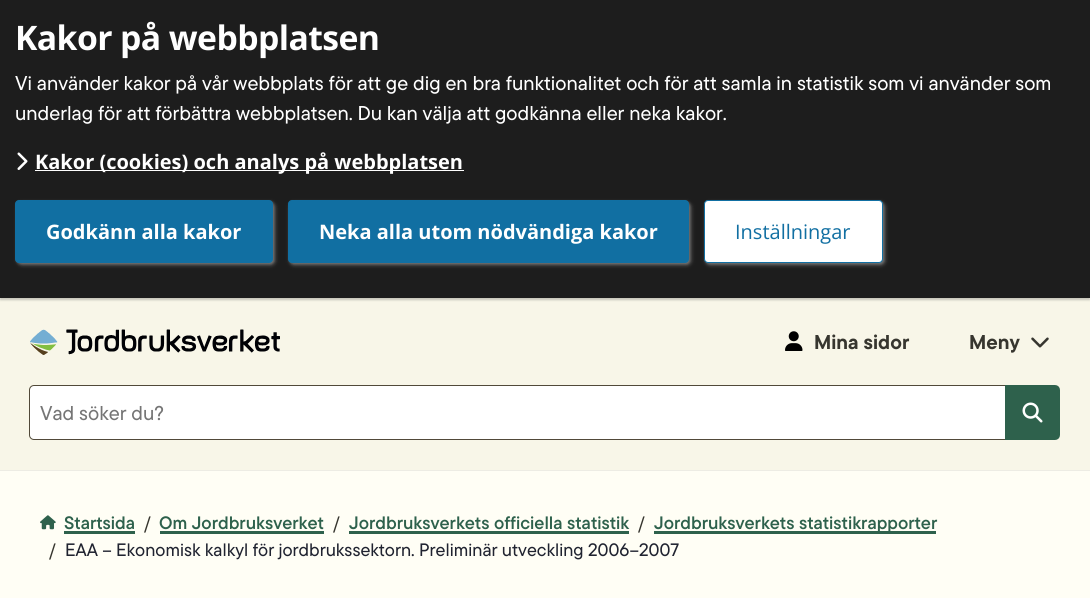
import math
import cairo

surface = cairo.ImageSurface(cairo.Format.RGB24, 1090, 598)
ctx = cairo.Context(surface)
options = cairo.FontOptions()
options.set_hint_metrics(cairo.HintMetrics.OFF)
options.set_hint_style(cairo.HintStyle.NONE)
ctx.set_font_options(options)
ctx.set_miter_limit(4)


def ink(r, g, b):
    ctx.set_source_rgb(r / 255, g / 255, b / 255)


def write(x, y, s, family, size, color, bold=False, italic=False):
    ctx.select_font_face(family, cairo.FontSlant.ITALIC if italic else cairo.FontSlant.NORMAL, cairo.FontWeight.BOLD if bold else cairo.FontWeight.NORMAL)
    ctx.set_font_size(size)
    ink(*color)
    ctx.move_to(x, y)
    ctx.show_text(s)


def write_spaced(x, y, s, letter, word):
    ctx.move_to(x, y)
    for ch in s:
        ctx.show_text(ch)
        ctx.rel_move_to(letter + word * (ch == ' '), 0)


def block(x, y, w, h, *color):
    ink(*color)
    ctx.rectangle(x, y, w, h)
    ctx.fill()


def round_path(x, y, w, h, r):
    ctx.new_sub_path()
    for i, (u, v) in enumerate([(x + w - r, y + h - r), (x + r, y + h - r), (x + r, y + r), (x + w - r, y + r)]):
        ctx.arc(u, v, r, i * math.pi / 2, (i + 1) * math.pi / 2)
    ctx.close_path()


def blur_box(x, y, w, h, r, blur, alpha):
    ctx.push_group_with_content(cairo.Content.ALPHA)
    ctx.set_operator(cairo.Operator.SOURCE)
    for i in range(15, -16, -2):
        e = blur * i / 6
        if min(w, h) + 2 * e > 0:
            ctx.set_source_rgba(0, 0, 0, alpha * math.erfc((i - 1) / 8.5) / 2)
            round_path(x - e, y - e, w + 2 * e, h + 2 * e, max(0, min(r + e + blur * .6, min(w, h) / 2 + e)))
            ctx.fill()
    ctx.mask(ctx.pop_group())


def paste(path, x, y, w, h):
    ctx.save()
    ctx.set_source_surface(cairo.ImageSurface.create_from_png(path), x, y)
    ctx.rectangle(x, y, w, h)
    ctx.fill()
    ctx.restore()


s1 = dict(family="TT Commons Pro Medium", size=20, color=(255, 255, 255))
s2 = dict(family="Open Sans", size=20, color=(255, 255, 255), bold=True)
s3 = dict(family="Open Sans", size=20, color=(17, 111, 162))
s4 = dict(family="TT Commons Pro", size=20, color=(55, 54, 47), bold=True)
s5 = dict(family="TT Commons Pro Medium", size=20, color=(117, 117, 117))
s6 = dict(family="TT Commons Pro SemiBold", size=18, color=(46, 97, 76))
s7 = dict(family="TT Commons Pro Medium", size=18, color=(55, 54, 47))
s8 = dict(family="TT Commons Pro Medium", size=18, color=(32, 35, 48))

ink(255, 254, 245)
ctx.paint()
block(0, 298, 1090, 172, 248, 246, 232)
ink(0, 0, 0)
blur_box(0, 3, 1090, 297, 0, 1, 0.2)
block(0, 0, 1090, 298, 29, 29, 29)
ctx.select_font_face("Open Sans", cairo.FontSlant.NORMAL, cairo.FontWeight.BOLD)
ctx.set_font_size(33.75)
ink(255, 255, 255)
write_spaced(15, 50, "Kakor på webbplatsen", -0.6, 0)
write(15, 90, "Vi använder kakor på vår webbplats för att ge dig en bra funktionalitet och för att samla in statistik som vi använder som", **s1)
write(15, 120, "underlag för att förbättra webbplatsen. Du kan välja att godkänna eller neka kakor.", **s1)
paste("pic1.png", 17, 152, 11, 18)
block(35, 170, 429, 1, 255, 255, 255)
write(35, 169, "Kakor (cookies) och analys på webbplatsen", **s2)
ink(158, 158, 158)
blur_box(18, 203, 257, 62, 4, 2, 0.58)
blur_box(16, 201, 258, 63, 4, 1, 0.29)
ink(17, 111, 162)
round_path(15.5, 200.5, 257, 62, 3.5)
ctx.fill_preserve()
ctx.set_line_width(1)
ctx.stroke()
write(46, 239, "Godkänn alla kakor", **s2)
ink(158, 158, 158)
blur_box(290, 203, 401, 62, 4, 2, 0.58)
blur_box(289, 201, 401, 63, 4, 1, 0.29)
ink(17, 111, 162)
round_path(288.5, 200.5, 400, 62, 3.5)
ctx.fill_preserve()
ctx.stroke()
write(319, 239, "Neka alla utom nödvändiga kakor", **s2)
ink(158, 158, 158)
blur_box(706, 203, 179, 62, 4, 2, 0.58)
blur_box(705, 201, 179, 63, 4, 1, 0.29)
ink(255, 255, 255)
round_path(704.5, 200.5, 178, 62, 3.5)
ctx.fill_preserve()
ink(17, 111, 162)
ctx.stroke()
write(735, 239, "Inställningar", **s3)
block(0, 470, 1090, 1, 237, 236, 228)
paste("pic2.png", 30, 329, 250, 26)
paste("pic3.png", 785, 331, 18, 20)
write(814, 349, "Mina sidor", **s4)
write(969, 349, "Meny", **s4)
paste("pic4.png", 1031, 337, 18, 11)
ink(255, 255, 255)
ctx.new_path()
ctx.move_to(34, 385.5)
ctx.line_to(1005.5, 385.5)
ctx.line_to(1005.5, 439.5)
ctx.line_to(34, 439.5)
ctx.curve_to(31.5, 439.5, 29.5, 437.5, 29.5, 435)
ctx.line_to(29.5, 390)
ctx.curve_to(29.5, 387.5, 31.5, 385.5, 34, 385.5)
ctx.close_path()
ctx.fill_preserve()
ink(81, 73, 57)
ctx.stroke()
write(40, 420, "Vad söker du?", **s5)
ink(46, 97, 76)
ctx.new_path()
ctx.move_to(1006.5, 386.5)
ctx.line_to(1055, 386.5)
ctx.curve_to(1057, 386.5, 1058.5, 388, 1058.5, 390)
ctx.line_to(1058.5, 435)
ctx.curve_to(1058.5, 437, 1057, 438.5, 1055, 438.5)
ctx.line_to(1006.5, 438.5)
ctx.close_path()
ctx.fill_preserve()
ctx.set_line_width(3)
ctx.stroke()
paste("pic5.png", 1022, 402, 21, 21)
paste("pic6.png", 40, 515, 16, 15)
write(64, 529, "Startsida", **s6)
block(64, 531, 71, 3, 46, 97, 76)
write(144, 529, "/", **s7)
write(159, 529, "Om Jordbruksverket", **s6)
block(160, 531, 164, 3, 46, 97, 76)
write(333, 529, "/", **s7)
write(349, 529, "Jordbruksverkets officiella statistik", **s6)
block(349, 531, 280, 3, 46, 97, 76)
write(638, 529, "/", **s7)
block(654, 531, 282, 3, 46, 97, 76)
write(654, 529, "Jordbruksverkets statistikrapporter", **s6)
write(49, 556, "/", **s7)
write(65, 556, "EAA – Ekonomisk kalkyl för jordbrukssektorn. Preliminär utveckling 2006–2007", **s8)
surface.write_to_png("screenshot.png")
